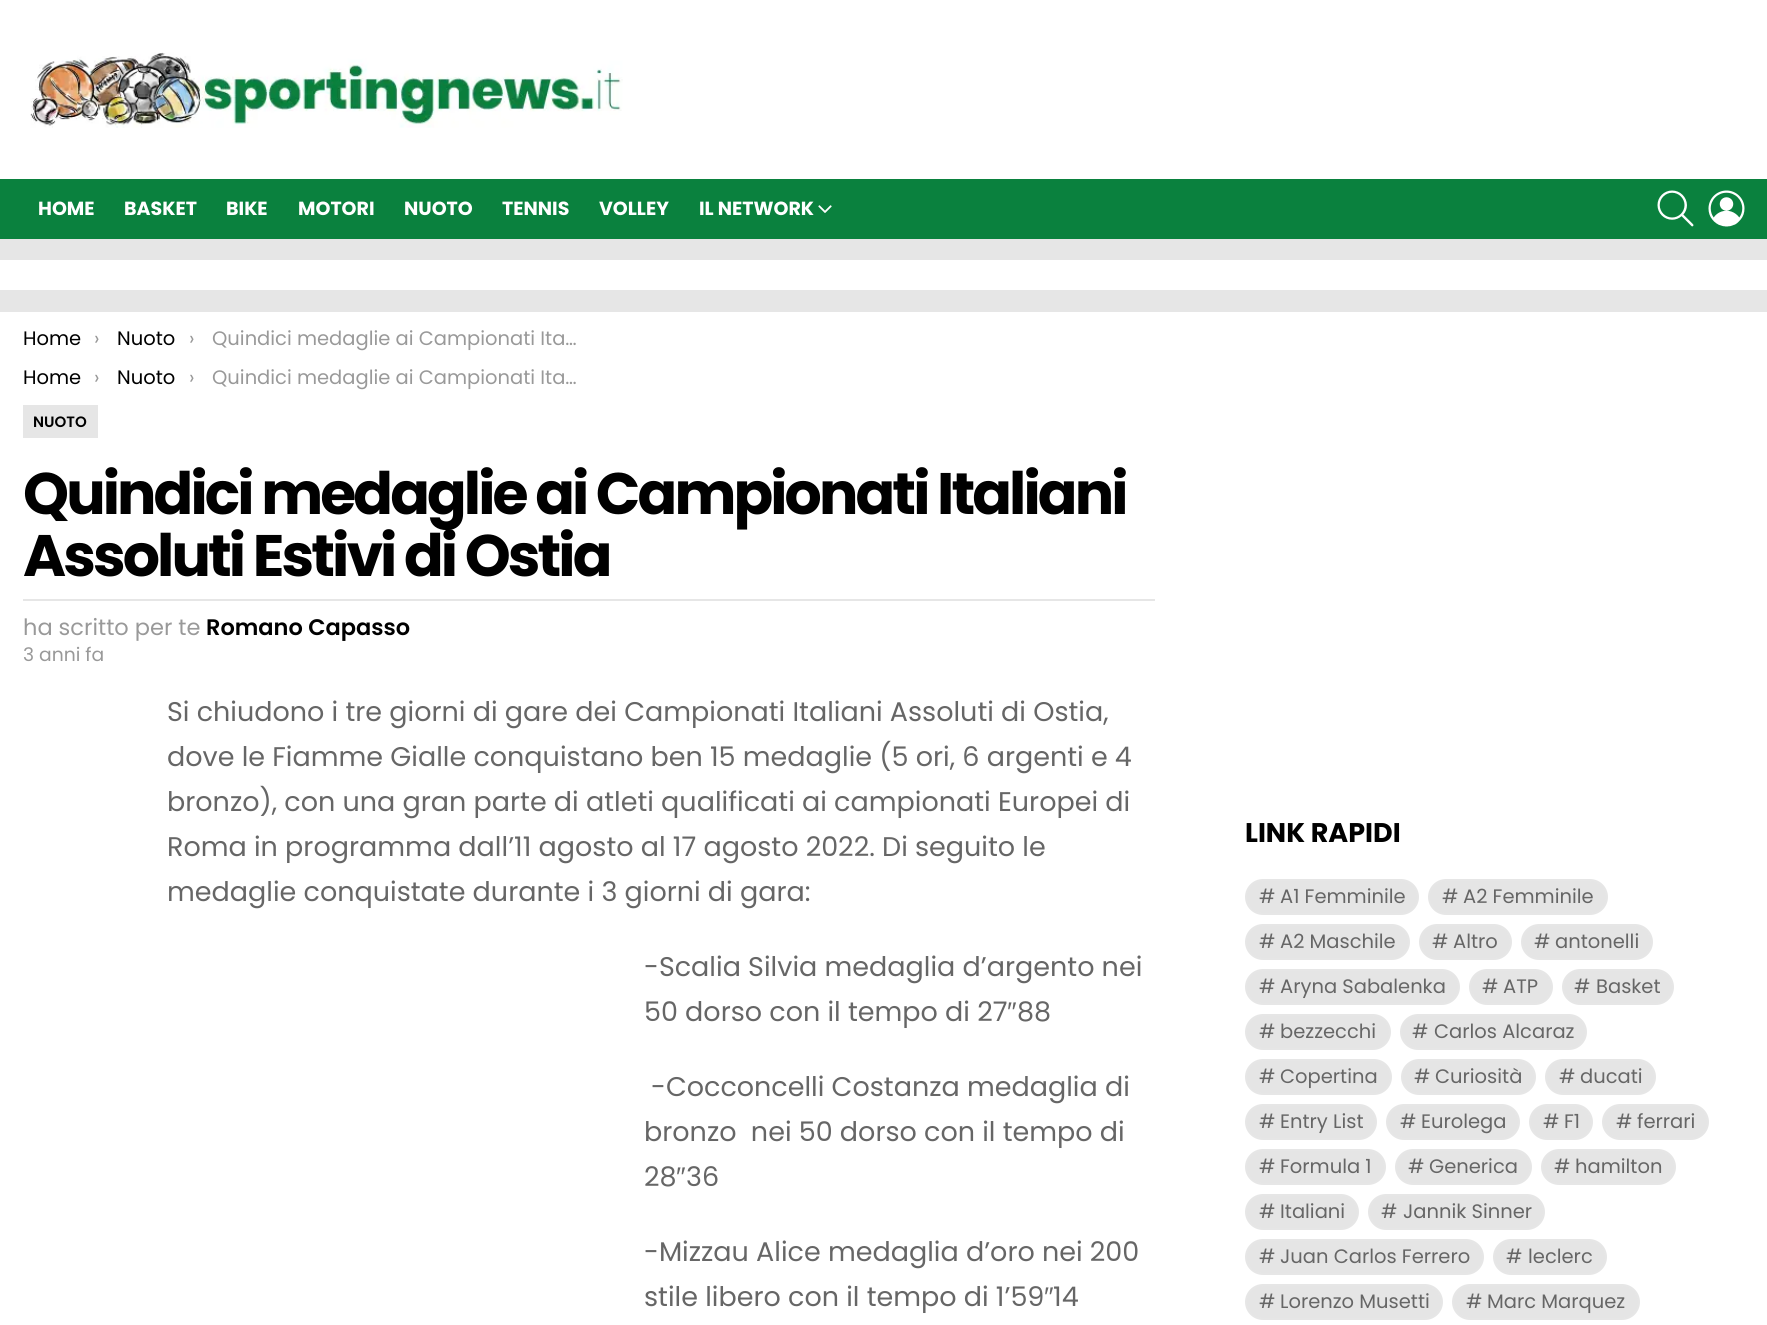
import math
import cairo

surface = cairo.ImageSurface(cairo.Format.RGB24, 1767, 1325)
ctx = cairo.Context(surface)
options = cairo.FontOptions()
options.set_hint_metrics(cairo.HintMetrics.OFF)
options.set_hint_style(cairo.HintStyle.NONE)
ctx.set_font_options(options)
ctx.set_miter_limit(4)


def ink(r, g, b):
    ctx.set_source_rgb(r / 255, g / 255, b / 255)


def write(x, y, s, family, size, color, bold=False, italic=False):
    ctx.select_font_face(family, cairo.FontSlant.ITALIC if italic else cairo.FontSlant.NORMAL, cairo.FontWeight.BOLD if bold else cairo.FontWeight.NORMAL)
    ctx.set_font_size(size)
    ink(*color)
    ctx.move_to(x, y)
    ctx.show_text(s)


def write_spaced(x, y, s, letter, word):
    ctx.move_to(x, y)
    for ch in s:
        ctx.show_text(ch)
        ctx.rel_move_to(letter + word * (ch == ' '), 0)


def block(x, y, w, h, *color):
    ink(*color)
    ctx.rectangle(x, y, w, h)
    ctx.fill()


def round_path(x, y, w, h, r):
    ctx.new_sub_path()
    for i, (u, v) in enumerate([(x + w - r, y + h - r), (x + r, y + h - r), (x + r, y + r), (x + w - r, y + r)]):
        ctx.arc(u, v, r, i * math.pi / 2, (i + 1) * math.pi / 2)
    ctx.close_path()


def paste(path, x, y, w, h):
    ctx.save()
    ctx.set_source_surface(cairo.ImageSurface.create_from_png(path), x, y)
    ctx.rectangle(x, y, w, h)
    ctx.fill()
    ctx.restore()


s1 = dict(family="Poppins", size=19, color=(255, 255, 255), bold=True)
s2 = dict(family="Poppins", size=19.5, color=(0, 0, 0))
s3 = dict(family="Poppins", size=19.5, color=(153, 153, 153))
s4 = dict(family="Poppins SemiBold", size=15, color=(0, 0, 0))
s5 = dict(family="Poppins", size=22.5, color=(153, 153, 153))
s6 = dict(family="Poppins SemiBold", size=22.5, color=(0, 0, 0))
s7 = dict(family="Poppins", size=18.75, color=(153, 153, 153))
s8 = dict(family="Poppins", size=27, color=(102, 102, 102))
s9 = dict(family="Liberation Sans", size=27, color=(102, 102, 102))
s10 = dict(family="Poppins", size=27, color=(0, 0, 0), bold=True)
s11 = dict(family="Poppins", size=19.5, color=(102, 102, 102))

ink(230, 230, 230)
ctx.paint()
block(0, 0, 1767, 179, 255, 255, 255)
paste("pic1.png", 30, 52, 593, 76)
block(0, 179, 1767, 60, 10, 129, 62)
write(38, 215, "HOME", **s1)
write(124, 215, "BASKET", **s1)
write(226, 215, "BIKE", **s1)
write(298, 215, "MOTORI", **s1)
write(404, 215, "NUOTO", **s1)
write(502, 215, "TENNIS", **s1)
write(599, 215, "VOLLEY", **s1)
write(699, 215, "IL NETWORK", **s1)
paste("pic2.png", 818, 205, 14, 8)
paste("pic3.png", 1657, 190, 37, 37)
paste("pic4.png", 1708, 190, 37, 37)
block(0, 260, 1767, 30, 255, 255, 255)
block(0, 312, 1767, 1013, 255, 255, 255)
write(23, 345, "Home", **s2)
write(94, 345, "›", **s3)
write(117, 345, "Nuoto", **s2)
write(189, 345, "›", **s3)
write(212, 345, "Quindici medaglie ai Campionati Ita…", **s3)
write(23, 384, "Home", **s2)
write(94, 384, "›", **s3)
write(117, 384, "Nuoto", **s2)
write(189, 384, "›", **s3)
write(212, 384, "Quindici medaglie ai Campionati Ita…", **s3)
block(23, 405, 75, 33, 230, 230, 230)
write(33, 427, "NUOTO", **s4)
ctx.select_font_face("Poppins", cairo.FontSlant.NORMAL, cairo.FontWeight.BOLD)
ctx.set_font_size(58.5)
write_spaced(23, 514, "Quindici medaglie ai Campionati Italiani", -2.9, 0)
write_spaced(23, 576, "Assoluti Estivi di Ostia", -2.9, 0)
block(23, 599, 1132, 2, 230, 230, 230)
write(23, 635, "ha scritto per te", **s5)
write(206, 635, "Romano Capasso", **s6)
write(23, 661, "3 anni fa", **s7)
write(167, 721, "Si chiudono i tre giorni di gare dei Campionati Italiani Assoluti di Ostia,", **s8)
write(167, 766, "dove le Fiamme Gialle conquistano ben 15 medaglie (5 ori, 6 argenti e 4", **s8)
write(167, 811, "bronzo), con una gran parte di atleti qualificati ai campionati Europei di", **s8)
write(167, 856, "Roma in programma dall’11 agosto al 17 agosto 2022. Di seguito le", **s8)
write(167, 901, "medaglie conquistate durante i 3 giorni di gara:", **s8)
write(644, 976, "-Scalia Silvia medaglia d’argento nei", **s8)
write(644, 1021, "50 dorso con il tempo di 27", **s8)
write(1007, 1021, "″", **s9)
write(1017, 1021, "88", **s8)
write(651, 1096, "-Cocconcelli Costanza medaglia di", **s8)
write(644, 1141, "bronzo  nei 50 dorso con il tempo di", **s8)
write(644, 1186, "28", **s8)
write(676, 1186, "″", **s9)
write(686, 1186, "36", **s8)
write(644, 1261, "-Mizzau Alice medaglia d’oro nei 200", **s8)
write(644, 1306, "stile libero con il tempo di 1’59", **s8)
write(1044, 1306, "″", **s9)
write(1053, 1306, "14", **s8)
write(1245, 842, "LINK RAPIDI", **s10)
write(1259, 903, "#", **s11)
write(1280, 903, "A1 Femminile", **s11)
ctx.set_source_rgba(0.4, 0.4, 0.4, 0.17)
round_path(1246, 880, 172, 34, 17)
ctx.fill_preserve()
ink(230, 230, 230)
ctx.stroke()
write(1442, 903, "#", **s11)
write(1463, 903, "A2 Femminile", **s11)
ctx.set_source_rgba(0.4, 0.4, 0.4, 0.17)
round_path(1429, 880, 178, 34, 17)
ctx.fill_preserve()
ink(230, 230, 230)
ctx.stroke()
write(1259, 948, "#", **s11)
write(1280, 948, "A2 Maschile", **s11)
ctx.set_source_rgba(0.4, 0.4, 0.4, 0.17)
round_path(1246, 925, 163, 34, 17)
ctx.fill_preserve()
ink(230, 230, 230)
ctx.stroke()
write(1432, 948, "#", **s11)
write(1453, 948, "Altro", **s11)
ctx.set_source_rgba(0.4, 0.4, 0.4, 0.17)
round_path(1420, 925, 91, 34, 17)
ctx.fill_preserve()
ink(230, 230, 230)
ctx.stroke()
write(1534, 948, "#", **s11)
write(1555, 948, "antonelli", **s11)
ctx.set_source_rgba(0.4, 0.4, 0.4, 0.17)
round_path(1522, 925, 130, 34, 17)
ctx.fill_preserve()
ink(230, 230, 230)
ctx.stroke()
write(1259, 993, "#", **s11)
write(1280, 993, "Aryna Sabalenka", **s11)
ctx.set_source_rgba(0.4, 0.4, 0.4, 0.17)
round_path(1246, 970, 213, 34, 17)
ctx.fill_preserve()
ink(230, 230, 230)
ctx.stroke()
write(1482, 993, "#", **s11)
write(1503, 993, "ATP", **s11)
ctx.set_source_rgba(0.4, 0.4, 0.4, 0.17)
round_path(1470, 970, 82, 34, 17)
ctx.fill_preserve()
ink(230, 230, 230)
ctx.stroke()
write(1574, 993, "#", **s11)
write(1596, 993, "Basket", **s11)
ctx.set_source_rgba(0.4, 0.4, 0.4, 0.17)
round_path(1563, 970, 110, 34, 17)
ctx.fill_preserve()
ink(230, 230, 230)
ctx.stroke()
write(1259, 1038, "#", **s11)
write(1280, 1038, "bezzecchi", **s11)
ctx.set_source_rgba(0.4, 0.4, 0.4, 0.17)
round_path(1246, 1015, 144, 34, 17)
ctx.fill_preserve()
ink(230, 230, 230)
ctx.stroke()
write(1412, 1038, "#", **s11)
write(1434, 1038, "Carlos Alcaraz", **s11)
ctx.set_source_rgba(0.4, 0.4, 0.4, 0.17)
round_path(1401, 1015, 185, 34, 17)
ctx.fill_preserve()
ink(230, 230, 230)
ctx.stroke()
write(1259, 1083, "#", **s11)
write(1280, 1083, "Copertina", **s11)
ctx.set_source_rgba(0.4, 0.4, 0.4, 0.17)
round_path(1246, 1060, 145, 34, 17)
ctx.fill_preserve()
ink(230, 230, 230)
ctx.stroke()
write(1414, 1083, "#", **s11)
write(1435, 1083, "Curiosità", **s11)
ctx.set_source_rgba(0.4, 0.4, 0.4, 0.17)
round_path(1402, 1060, 133, 34, 17)
ctx.fill_preserve()
ink(230, 230, 230)
ctx.stroke()
write(1559, 1083, "#", **s11)
write(1580, 1083, "ducati", **s11)
ctx.set_source_rgba(0.4, 0.4, 0.4, 0.17)
round_path(1546, 1060, 109, 34, 17)
ctx.fill_preserve()
ink(230, 230, 230)
ctx.stroke()
write(1259, 1128, "#", **s11)
write(1280, 1128, "Entry List", **s11)
ctx.set_source_rgba(0.4, 0.4, 0.4, 0.17)
round_path(1246, 1105, 130, 34, 17)
ctx.fill_preserve()
ink(230, 230, 230)
ctx.stroke()
write(1400, 1128, "#", **s11)
write(1421, 1128, "Eurolega", **s11)
ctx.set_source_rgba(0.4, 0.4, 0.4, 0.17)
round_path(1387, 1105, 132, 34, 17)
ctx.fill_preserve()
ink(230, 230, 230)
ctx.stroke()
write(1543, 1128, "#", **s11)
write(1564, 1128, "F1", **s11)
ctx.set_source_rgba(0.4, 0.4, 0.4, 0.17)
round_path(1530, 1105, 62, 34, 17)
ctx.fill_preserve()
ink(230, 230, 230)
ctx.stroke()
write(1616, 1128, "#", **s11)
write(1637, 1128, "ferrari", **s11)
ctx.set_source_rgba(0.4, 0.4, 0.4, 0.17)
round_path(1603, 1105, 105, 34, 17)
ctx.fill_preserve()
ink(230, 230, 230)
ctx.stroke()
write(1259, 1173, "#", **s11)
write(1280, 1173, "Formula 1", **s11)
ctx.set_source_rgba(0.4, 0.4, 0.4, 0.17)
round_path(1246, 1150, 139, 34, 17)
ctx.fill_preserve()
ink(230, 230, 230)
ctx.stroke()
write(1408, 1173, "#", **s11)
write(1429, 1173, "Generica", **s11)
ctx.set_source_rgba(0.4, 0.4, 0.4, 0.17)
round_path(1396, 1150, 135, 34, 17)
ctx.fill_preserve()
ink(230, 230, 230)
ctx.stroke()
write(1554, 1173, "#", **s11)
write(1575, 1173, "hamilton", **s11)
ctx.set_source_rgba(0.4, 0.4, 0.4, 0.17)
round_path(1542, 1150, 133, 34, 17)
ctx.fill_preserve()
ink(230, 230, 230)
ctx.stroke()
write(1259, 1218, "#", **s11)
write(1280, 1218, "Italiani", **s11)
ctx.set_source_rgba(0.4, 0.4, 0.4, 0.17)
round_path(1246, 1195, 112, 34, 17)
ctx.fill_preserve()
ink(230, 230, 230)
ctx.stroke()
write(1381, 1218, "#", **s11)
write(1403, 1218, "Jannik Sinner", **s11)
ctx.set_source_rgba(0.4, 0.4, 0.4, 0.17)
round_path(1369, 1195, 175, 34, 17)
ctx.fill_preserve()
ink(230, 230, 230)
ctx.stroke()
write(1259, 1263, "#", **s11)
write(1280, 1263, "Juan Carlos Ferrero", **s11)
ctx.set_source_rgba(0.4, 0.4, 0.4, 0.17)
round_path(1246, 1240, 237, 34, 17)
ctx.fill_preserve()
ink(230, 230, 230)
ctx.stroke()
write(1506, 1263, "#", **s11)
write(1528, 1263, "leclerc", **s11)
ctx.set_source_rgba(0.4, 0.4, 0.4, 0.17)
round_path(1494, 1240, 112, 34, 17)
ctx.fill_preserve()
ink(230, 230, 230)
ctx.stroke()
write(1259, 1308, "#", **s11)
write(1280, 1308, "Lorenzo Musetti", **s11)
ctx.set_source_rgba(0.4, 0.4, 0.4, 0.17)
round_path(1246, 1285, 196, 34, 17)
ctx.fill_preserve()
ink(230, 230, 230)
ctx.stroke()
write(1466, 1308, "#", **s11)
write(1487, 1308, "Marc Marquez", **s11)
ctx.set_source_rgba(0.4, 0.4, 0.4, 0.17)
round_path(1453, 1285, 186, 34, 17)
ctx.fill_preserve()
ink(230, 230, 230)
ctx.stroke()
surface.write_to_png("screenshot.png")
